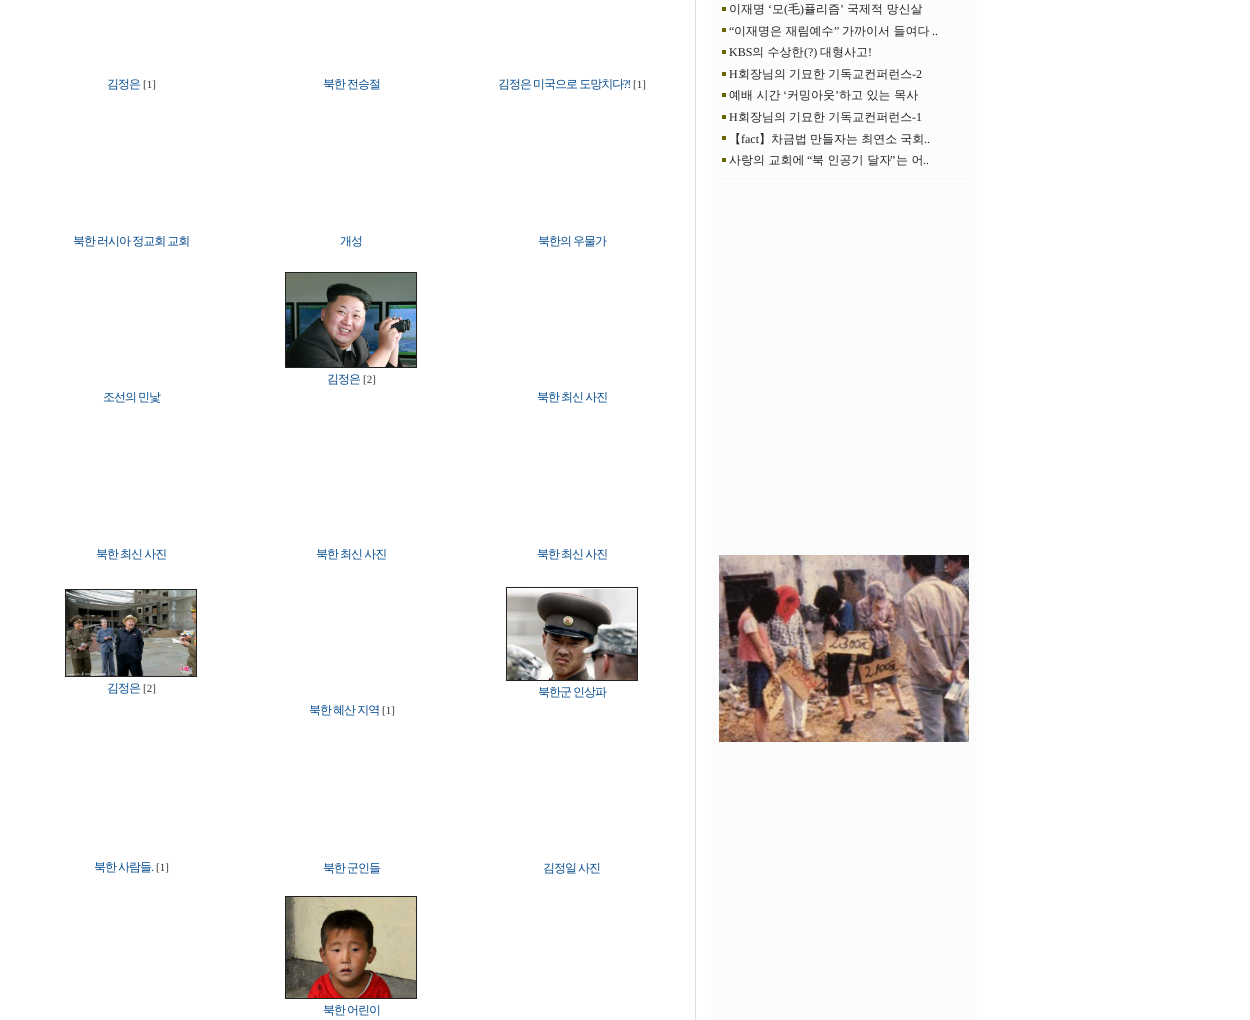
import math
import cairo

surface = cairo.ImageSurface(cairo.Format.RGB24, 1250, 1020)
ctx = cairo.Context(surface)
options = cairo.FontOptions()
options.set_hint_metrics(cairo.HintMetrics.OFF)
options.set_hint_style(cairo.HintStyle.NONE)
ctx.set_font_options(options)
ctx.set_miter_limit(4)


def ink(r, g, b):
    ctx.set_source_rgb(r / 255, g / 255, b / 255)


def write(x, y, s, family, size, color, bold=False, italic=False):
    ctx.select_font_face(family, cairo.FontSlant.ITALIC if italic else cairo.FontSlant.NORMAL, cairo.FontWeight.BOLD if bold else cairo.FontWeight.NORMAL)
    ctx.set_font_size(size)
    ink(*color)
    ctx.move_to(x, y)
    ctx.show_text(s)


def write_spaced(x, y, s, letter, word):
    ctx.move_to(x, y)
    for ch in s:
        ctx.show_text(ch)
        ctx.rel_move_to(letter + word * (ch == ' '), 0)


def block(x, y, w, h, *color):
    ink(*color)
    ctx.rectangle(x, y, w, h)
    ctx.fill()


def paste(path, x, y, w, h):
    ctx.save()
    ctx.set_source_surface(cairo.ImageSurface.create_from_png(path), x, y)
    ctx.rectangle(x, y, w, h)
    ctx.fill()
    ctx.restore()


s1 = dict(family="Liberation Serif", size=11, color=(51, 51, 51))
s2 = dict(family="WenQuanYi Zen Hei Medium", size=12, color=(34, 34, 34))
s3 = dict(family="Liberation Serif", size=12, color=(34, 34, 34))

ink(255, 255, 255)
ctx.paint()
ctx.select_font_face("WenQuanYi Zen Hei Medium")
ctx.set_font_size(12)
ink(1, 73, 141)
write_spaced(107, 88, "김정은", -1, 0)
write(143, 88, "[1]", **s1)
ctx.select_font_face("WenQuanYi Zen Hei Medium")
ctx.set_font_size(12)
ink(1, 73, 141)
write_spaced(323, 88, "북한 전승절", -1, -0.5)
write_spaced(498, 88, "김정은 미국으로 도망치다", -1, -0.5)
ctx.select_font_face("Liberation Serif")
write_spaced(623, 88, "?!", -1, 0)
write(633, 88, "[1]", **s1)
ctx.select_font_face("WenQuanYi Zen Hei Medium")
ctx.set_font_size(12)
ink(1, 73, 141)
write_spaced(73, 245, "북한 러시아 정교회 교회", -1, -0.5)
write_spaced(340, 245, "개성", -1, 0)
write_spaced(538, 245, "북한의 우물가", -1, -0.5)
ctx.rectangle(285.5, 272.5, 131, 95)
ink(34, 34, 34)
ctx.set_line_width(1)
ctx.stroke()
paste("pic1.png", 286, 273, 130, 94)
ink(1, 73, 141)
write_spaced(327, 383, "김정은", -1, 0)
write(363, 383, "[2]", **s1)
ctx.select_font_face("WenQuanYi Zen Hei Medium")
ctx.set_font_size(12)
ink(1, 73, 141)
write_spaced(103, 401, "조선의 민낯", -1, -0.5)
write_spaced(537, 401, "북한 최신 사진", -1, -0.5)
write_spaced(96, 558, "북한 최신 사진", -1, -0.5)
write_spaced(316, 558, "북한 최신 사진", -1, -0.5)
write_spaced(537, 558, "북한 최신 사진", -1, -0.5)
ctx.rectangle(65.5, 589.5, 131, 87)
ink(34, 34, 34)
ctx.stroke()
paste("pic2.png", 66, 590, 130, 86)
ink(1, 73, 141)
write_spaced(107, 692, "김정은", -1, 0)
write(143, 692, "[2]", **s1)
ctx.rectangle(506.5, 587.5, 131, 93)
ink(34, 34, 34)
ctx.stroke()
paste("pic3.png", 507, 589, 130, 91)
ctx.select_font_face("WenQuanYi Zen Hei Medium")
ctx.set_font_size(12)
ink(1, 73, 141)
write_spaced(538, 696, "북한군 인상파", -1, -0.5)
write_spaced(309, 714, "북한 혜산 지역", -1, -0.5)
write(382, 714, "[1]", **s1)
ctx.select_font_face("WenQuanYi Zen Hei Medium")
ctx.set_font_size(12)
ink(1, 73, 141)
write_spaced(94, 871, "북한 사람들", -1, -0.5)
ctx.select_font_face("Liberation Serif")
write_spaced(151, 871, ".", -1, 0)
write(156, 871, "[1]", **s1)
ctx.select_font_face("WenQuanYi Zen Hei Medium")
ctx.set_font_size(12)
ink(1, 73, 141)
write_spaced(323, 872, "북한 군인들", -1, -0.5)
write_spaced(543, 872, "김정일 사진", -1, -0.5)
ctx.rectangle(285.5, 896.5, 131, 102)
ink(34, 34, 34)
ctx.stroke()
paste("pic4.png", 286, 897, 130, 101)
ink(1, 73, 141)
write_spaced(323, 1014, "북한 어린이", -1, -0.5)
block(695, 0, 1, 1020, 221, 221, 221)
block(711, 0, 266, 1020, 252, 252, 252)
block(722, 7, 4, 4, 102, 102, 0)
write(729, 13, "이재명", **s2)
write(768, 13, "‘", **s3)
write(772, 13, "모", **s2)
write(784, 13, "(", **s3)
write(788, 13, "毛", **s2)
write(800, 13, ")", **s3)
write(804, 13, "퓰리즘", **s2)
write(840, 13, "’", **s3)
write(847, 13, "국제적 망신살", **s2)
block(722, 28, 4, 4, 102, 102, 0)
write(729, 35, "“", **s3)
write(734, 35, "이재명은 재림예수", **s2)
write(834, 35, "”", **s3)
write(842, 35, "가까이서 들여다", **s2)
write(932, 35, "..", **s3)
block(722, 50, 4, 4, 102, 102, 0)
write(729, 56, "KBS", **s3)
write(752, 56, "의 수상한", **s2)
write(804, 56, "(?)", **s3)
write(820, 56, "대형사고", **s2)
write(868, 56, "!", **s3)
block(722, 72, 4, 4, 102, 102, 0)
write(729, 78, "H", **s3)
ctx.select_font_face("WenQuanYi Zen Hei Medium")
write_spaced(738, 78, "회장님의 기묘한 기독교컨퍼런스", 0, -0.5)
write(912, 78, "-2", **s3)
block(722, 93, 4, 4, 102, 102, 0)
write(729, 99, "예배 시간", **s2)
write(783, 99, "‘", **s3)
write(787, 99, "커밍아웃", **s2)
write(835, 99, "’", **s3)
write(839, 99, "하고 있는 목사", **s2)
block(722, 115, 4, 4, 102, 102, 0)
write(729, 121, "H", **s3)
ctx.select_font_face("WenQuanYi Zen Hei Medium")
write_spaced(738, 121, "회장님의 기묘한 기독교컨퍼런스", 0, -0.5)
write(912, 121, "-1", **s3)
block(722, 136, 4, 4, 102, 102, 0)
write(729, 143, "【", **s2)
write(741, 143, "fact", **s3)
ctx.select_font_face("WenQuanYi Zen Hei Medium")
write_spaced(759, 143, "】차금법 만들자는 최연소 국회", 0, -0.5)
write(924, 143, "..", **s3)
block(722, 158, 4, 4, 102, 102, 0)
write(729, 164, "사랑의 교회에", **s2)
write(807, 164, "“", **s3)
write(812, 164, "북 인공기 달자", **s2)
write(890, 164, "”", **s3)
write(896, 164, "는 어", **s2)
write(923, 164, "..", **s3)
block(718, 178, 252, 1, 244, 247, 240)
paste("pic5.png", 719, 555, 250, 187)
surface.write_to_png("screenshot.png")
